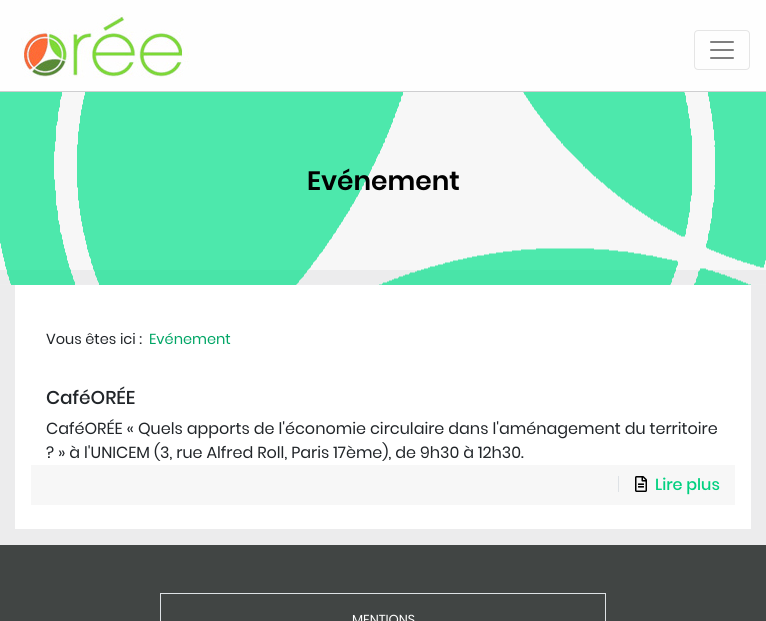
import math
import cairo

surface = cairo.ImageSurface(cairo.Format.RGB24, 766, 621)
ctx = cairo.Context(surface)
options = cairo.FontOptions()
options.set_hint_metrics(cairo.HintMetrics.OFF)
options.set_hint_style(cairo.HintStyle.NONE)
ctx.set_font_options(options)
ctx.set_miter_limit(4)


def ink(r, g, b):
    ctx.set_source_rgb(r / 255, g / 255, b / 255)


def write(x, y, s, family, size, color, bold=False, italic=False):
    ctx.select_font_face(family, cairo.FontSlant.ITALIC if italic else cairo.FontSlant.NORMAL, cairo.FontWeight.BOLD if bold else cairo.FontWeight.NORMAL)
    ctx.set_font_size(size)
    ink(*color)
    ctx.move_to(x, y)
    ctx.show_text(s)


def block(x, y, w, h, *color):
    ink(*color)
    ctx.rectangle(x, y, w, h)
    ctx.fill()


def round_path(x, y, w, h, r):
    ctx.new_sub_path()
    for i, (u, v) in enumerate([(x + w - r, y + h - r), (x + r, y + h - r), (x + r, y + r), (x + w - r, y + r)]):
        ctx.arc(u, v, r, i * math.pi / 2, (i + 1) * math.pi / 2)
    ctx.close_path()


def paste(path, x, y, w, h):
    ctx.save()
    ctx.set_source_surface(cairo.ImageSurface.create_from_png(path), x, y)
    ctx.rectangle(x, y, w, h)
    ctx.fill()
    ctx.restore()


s1 = dict(family="Poppins SemiBold", size=26.5, color=(0, 0, 0))
s2 = dict(family="Poppins", size=14.5, color=(33, 37, 41))
s3 = dict(family="Poppins", size=14.5, color=(0, 165, 101))
s4 = dict(family="Poppins Medium", size=18.5, color=(33, 37, 41))
s5 = dict(family="Poppins", size=16, color=(33, 37, 41))
s6 = dict(family="Poppins Medium", size=16, color=(2, 208, 128))
s7 = dict(family="Poppins", size=13, color=(255, 255, 255))

ink(236, 236, 237)
ctx.paint()
block(0, 0, 766, 91, 254, 254, 254)
block(0, 91, 766, 1, 206, 206, 208)
paste("pic1.png", 20, 14, 169, 64)
round_path(694.5, 30.5, 55, 39, 3.5)
ink(229, 229, 229)
ctx.set_line_width(1)
ctx.stroke()
paste("pic2.png", 710, 41, 24, 18)
block(0, 92, 766, 178, 247, 247, 247)
paste("pic3.png", 0, 92, 766, 193)
write(307, 190, "Evénement", **s1)
block(15, 285, 736, 244, 255, 255, 255)
write(46, 344, "Vous êtes ici :", **s2)
write(149, 344, "Evénement", **s3)
write(46, 404, "CaféORÉE", **s4)
write(46, 434, "CaféORÉE « Quels apports de l'économie circulaire dans l'aménagement du territoire", **s5)
write(46, 458, "? » à l'UNICEM (3, rue Alfred Roll, Paris 17ème), de 9h30 à 12h30.", **s5)
block(31, 465, 704, 40, 247, 247, 247)
block(618, 476, 1, 16, 222, 226, 230)
paste("pic4.png", 635, 476, 12, 16)
write(655, 490, "Lire plus", **s6)
block(0, 545, 766, 76, 65, 69, 68)
ctx.rectangle(160.5, 593.5, 445, 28)
ink(222, 226, 230)
ctx.stroke()
write(352, 624, "MENTIONS", **s7)
surface.write_to_png("screenshot.png")
